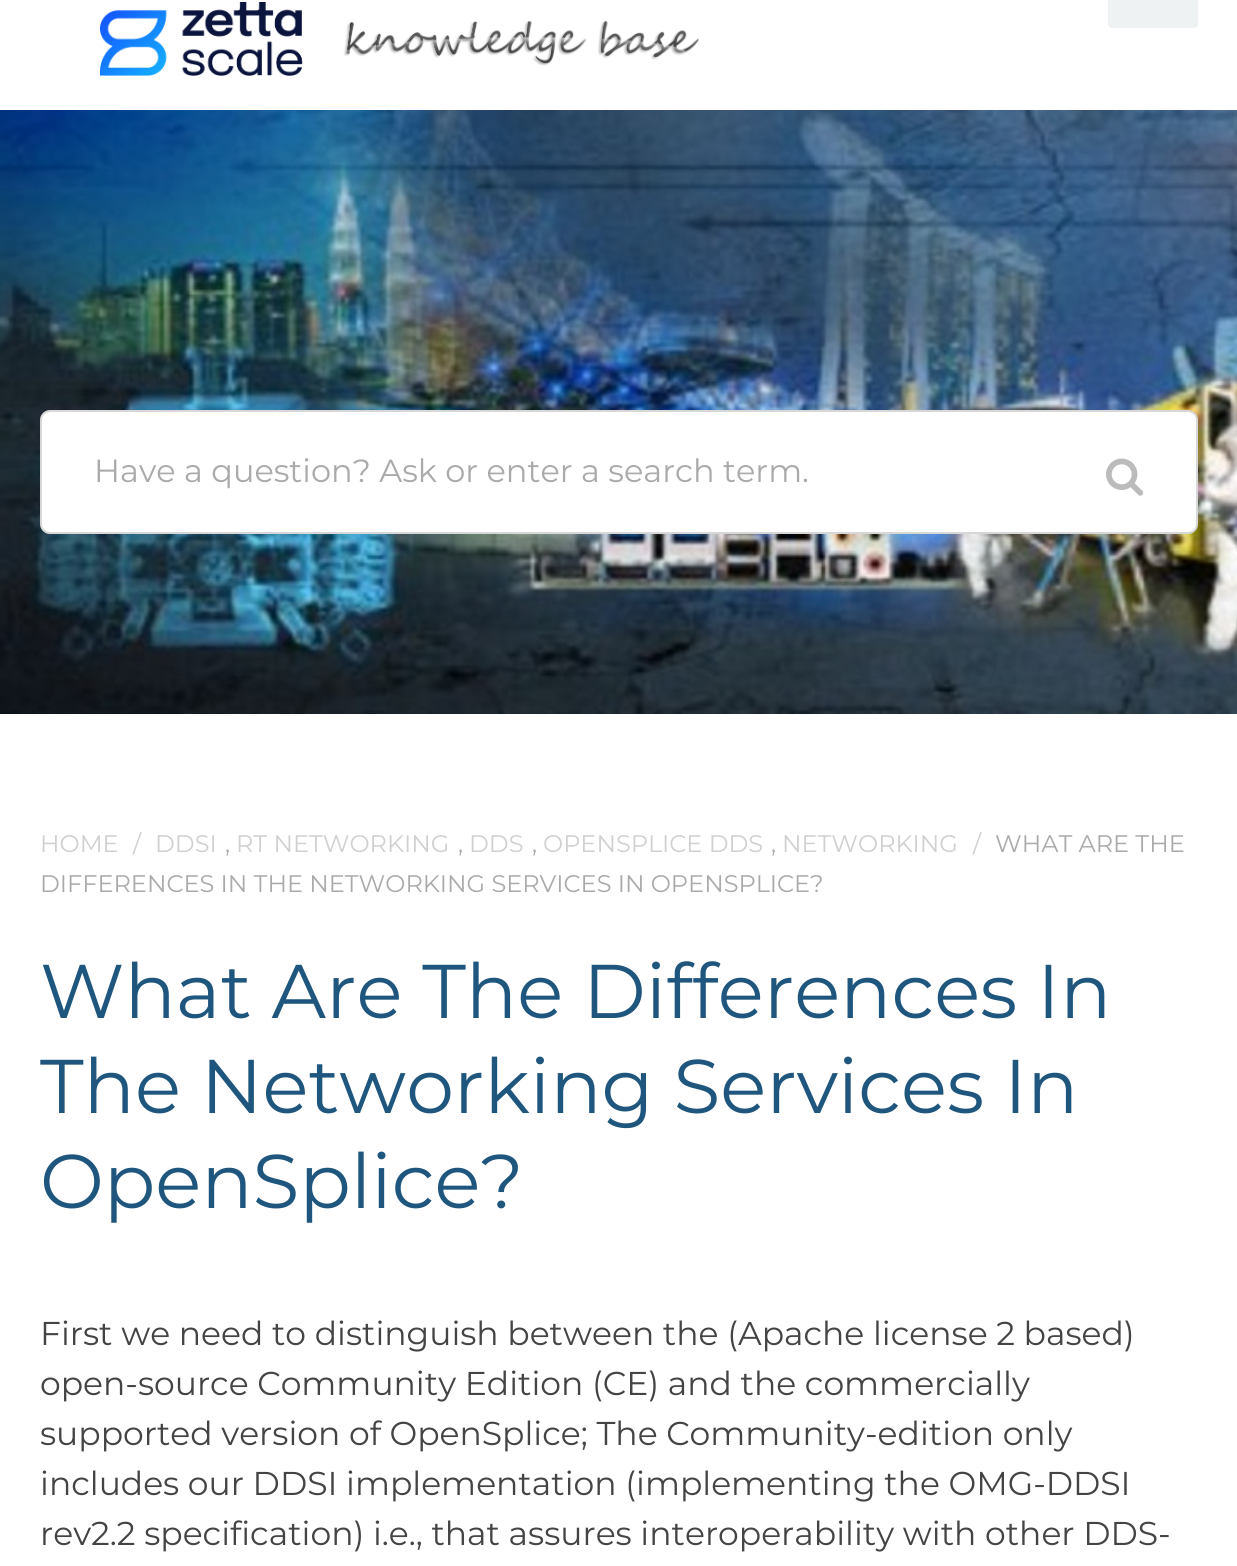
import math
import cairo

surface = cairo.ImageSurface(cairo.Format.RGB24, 1237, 1566)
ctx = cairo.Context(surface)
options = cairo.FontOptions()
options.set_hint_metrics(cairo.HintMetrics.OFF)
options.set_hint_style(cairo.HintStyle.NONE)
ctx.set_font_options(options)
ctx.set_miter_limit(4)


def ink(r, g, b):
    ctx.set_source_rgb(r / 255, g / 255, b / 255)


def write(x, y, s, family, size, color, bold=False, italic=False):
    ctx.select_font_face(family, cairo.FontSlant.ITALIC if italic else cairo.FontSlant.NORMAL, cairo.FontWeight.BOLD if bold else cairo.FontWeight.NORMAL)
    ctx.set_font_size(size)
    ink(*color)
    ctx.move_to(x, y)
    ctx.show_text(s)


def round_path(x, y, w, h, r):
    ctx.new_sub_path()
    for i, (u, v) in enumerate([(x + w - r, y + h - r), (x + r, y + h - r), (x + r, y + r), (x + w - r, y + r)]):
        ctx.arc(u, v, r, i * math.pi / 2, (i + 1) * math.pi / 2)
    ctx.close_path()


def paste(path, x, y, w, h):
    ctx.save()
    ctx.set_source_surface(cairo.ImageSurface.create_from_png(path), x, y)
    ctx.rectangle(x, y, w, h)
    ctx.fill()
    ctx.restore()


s1 = dict(family="Montserrat Thin", size=32, color=(170, 170, 170))
s2 = dict(family="Montserrat Thin", size=24, color=(208, 208, 208))
s3 = dict(family="Montserrat Thin", size=24, color=(170, 170, 170))
s4 = dict(family="Montserrat Thin", size=76, color=(31, 86, 125))
s5 = dict(family="Montserrat Thin", size=33, color=(68, 68, 68))

ink(255, 255, 255)
ctx.paint()
paste("pic1.png", 100, 2, 599, 74)
ink(239, 242, 243)
round_path(1108, -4, 90, 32, 4)
ctx.fill()
paste("pic2.png", 0, 110, 1237, 604)
ink(255, 255, 255)
round_path(41, 411, 1156, 122, 9)
ctx.fill_preserve()
ink(215, 215, 215)
ctx.stroke()
write(94, 482, "Have a question? Ask or enter a search term.", **s1)
paste("pic3.png", 1106, 458, 38, 38)
write(40, 852, "HOME", **s2)
write(133, 852, "/", **s2)
write(155, 852, "DDSI", **s2)
write(225, 852, ",", **s3)
write(236, 852, "RT NETWORKING", **s2)
write(458, 852, ",", **s3)
write(469, 852, "DDS", **s2)
write(532, 852, ",", **s3)
write(543, 852, "OPENSPLICE DDS", **s2)
write(771, 852, ",", **s3)
write(782, 852, "NETWORKING", **s2)
write(973, 852, "/", **s2)
write(995, 852, "WHAT ARE THE", **s3)
write(40, 892, "DIFFERENCES IN THE NETWORKING SERVICES IN OPENSPLICE?", **s3)
write(40, 1018, "What Are The Differences In", **s4)
write(40, 1113, "The Networking Services In", **s4)
write(40, 1208, "OpenSplice?", **s4)
write(40, 1345, "First we need to distinguish between the (Apache license 2 based)", **s5)
write(40, 1395, "open-source Community Edition (CE) and the commercially", **s5)
write(40, 1445, "supported version of OpenSplice; The Community-edition only", **s5)
write(40, 1495, "includes our DDSI implementation (implementing the OMG-DDSI", **s5)
write(40, 1545, "rev2.2 specification) i.e., that assures interoperability with other DDS-", **s5)
surface.write_to_png("screenshot.png")
